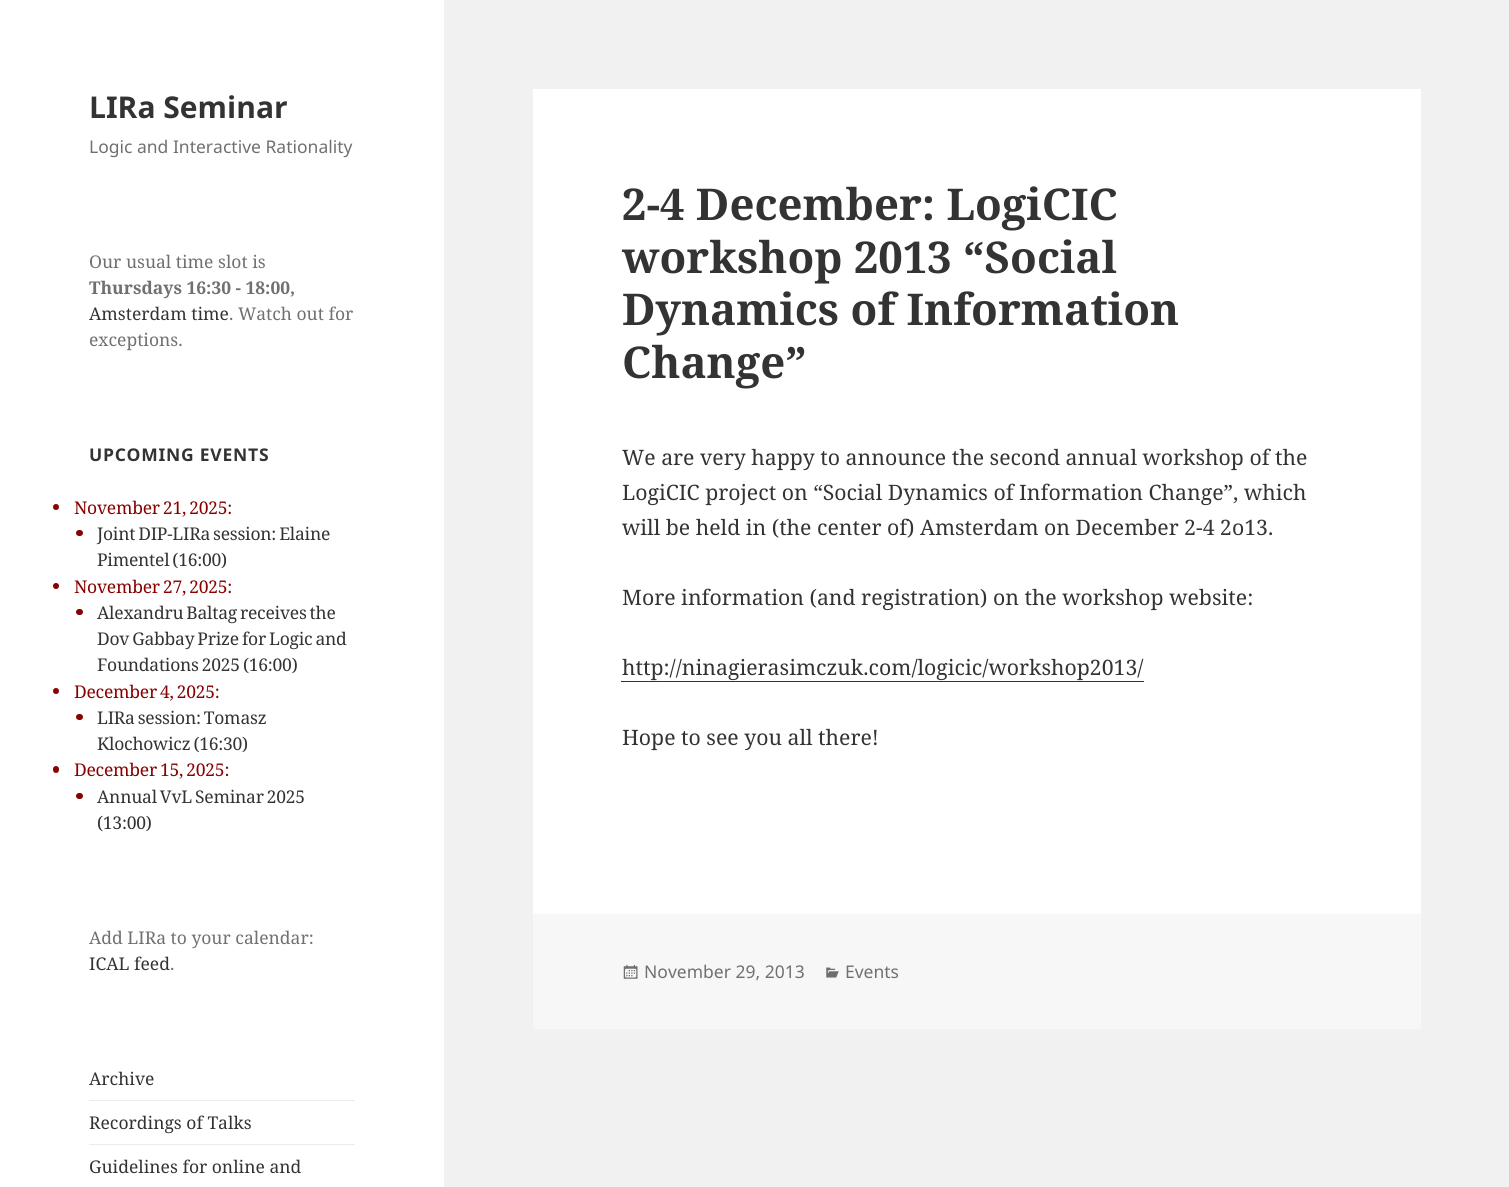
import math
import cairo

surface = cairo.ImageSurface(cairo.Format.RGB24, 1509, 1187)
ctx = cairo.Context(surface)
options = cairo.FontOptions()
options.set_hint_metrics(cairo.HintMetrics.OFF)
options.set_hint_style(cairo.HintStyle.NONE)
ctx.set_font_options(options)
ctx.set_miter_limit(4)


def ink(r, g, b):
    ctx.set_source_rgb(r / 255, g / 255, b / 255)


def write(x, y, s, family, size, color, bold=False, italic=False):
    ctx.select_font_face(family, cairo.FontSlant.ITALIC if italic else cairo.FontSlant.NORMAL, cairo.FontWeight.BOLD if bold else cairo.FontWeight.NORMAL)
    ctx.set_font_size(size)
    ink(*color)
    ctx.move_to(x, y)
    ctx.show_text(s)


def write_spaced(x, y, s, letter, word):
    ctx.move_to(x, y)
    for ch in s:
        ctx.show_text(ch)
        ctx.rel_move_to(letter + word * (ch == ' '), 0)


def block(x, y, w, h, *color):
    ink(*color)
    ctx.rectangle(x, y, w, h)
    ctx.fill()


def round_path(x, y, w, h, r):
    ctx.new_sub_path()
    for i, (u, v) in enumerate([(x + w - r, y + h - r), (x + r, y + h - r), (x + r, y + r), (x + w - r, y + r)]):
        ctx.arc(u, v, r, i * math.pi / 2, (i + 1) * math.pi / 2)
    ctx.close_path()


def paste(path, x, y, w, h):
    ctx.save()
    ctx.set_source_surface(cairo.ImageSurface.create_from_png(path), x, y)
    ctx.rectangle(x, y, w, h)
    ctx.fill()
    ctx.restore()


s1 = dict(family="Noto Sans", size=30, color=(51, 51, 51), bold=True)
s2 = dict(family="Noto Sans", size=17.5, color=(112, 112, 112))
s3 = dict(family="Noto Serif", size=17.5, color=(112, 112, 112))
s4 = dict(family="Noto Serif", size=17.5, color=(112, 112, 112), bold=True)
s5 = dict(family="Noto Serif", size=17.5, color=(51, 51, 51))
s6 = dict(family="Noto Serif", size=43.75, color=(51, 51, 51), bold=True)
s7 = dict(family="Noto Serif", size=21.25, color=(51, 51, 51))

ink(241, 241, 241)
ctx.paint()
block(0, 0, 444, 1187, 255, 255, 255)
write(89, 118, "LIRa Seminar", **s1)
write(89, 153, "Logic and Interactive Rationality", **s2)
write(89, 268, "Our usual time slot is", **s3)
write(89, 294, "Thursdays 16:30 - 18:00,", **s4)
write(89, 320, "Amsterdam time", **s5)
write(229, 320, ". Watch out for", **s3)
write(89, 346, "exceptions.", **s3)
ctx.select_font_face("Noto Sans", cairo.FontSlant.NORMAL, cairo.FontWeight.BOLD)
ink(51, 51, 51)
write_spaced(89, 461, "UPCOMING EVENTS", 0.75, 0)
ink(136, 0, 0)
ctx.new_path()
ctx.arc(56, 507, 3, 0, 2 * math.pi)
ctx.fill()
ctx.select_font_face("Noto Serif")
write_spaced(74, 514, "November 21, 2025:", -0.25, -1.25)
round_path(76, 530, 7, 6, 3)
ctx.fill()
ink(51, 51, 51)
write_spaced(97, 540, "Joint DIP-LIRa session: Elaine", -0.25, -1.25)
write_spaced(97, 566, "Pimentel (16:00)", -0.25, -1.25)
ink(136, 0, 0)
ctx.new_path()
ctx.arc(56, 586, 3, 0, 2 * math.pi)
ctx.fill()
write_spaced(74, 593, "November 27, 2025:", -0.25, -1.25)
round_path(76, 609, 7, 6, 3)
ctx.fill()
ink(51, 51, 51)
write_spaced(97, 619, "Alexandru Baltag receives the", -0.25, -1.25)
write_spaced(97, 645, "Dov Gabbay Prize for Logic and", -0.25, -1.25)
write_spaced(97, 671, "Foundations 2025 (16:00)", -0.25, -1.25)
ink(136, 0, 0)
ctx.new_path()
ctx.arc(56, 691, 3, 0, 2 * math.pi)
ctx.fill()
write_spaced(74, 698, "December 4, 2025:", -0.25, -1.25)
round_path(76, 714, 7, 6, 3)
ctx.fill()
ink(51, 51, 51)
write_spaced(97, 724, "LIRa session: Tomasz", -0.25, -1.25)
write_spaced(97, 750, "Klochowicz (16:30)", -0.25, -1.25)
ink(136, 0, 0)
round_path(53, 766, 6, 7, 3)
ctx.fill()
write_spaced(74, 776, "December 15, 2025:", -0.25, -1.25)
round_path(76, 793, 7, 6, 3)
ctx.fill()
ink(51, 51, 51)
write_spaced(97, 803, "Annual VvL Seminar 2025", -0.25, -1.25)
write_spaced(97, 829, "(13:00)", -0.25, 0)
write(89, 944, "Add LIRa to your calendar:", **s3)
write(89, 970, "ICAL feed", **s5)
write(170, 970, ".", **s3)
write(89, 1085, "Archive", **s5)
block(89, 1100, 266, 1, 235, 235, 235)
write(89, 1129, "Recordings of Talks", **s5)
block(89, 1144, 266, 1, 235, 235, 235)
write(89, 1173, "Guidelines for online and", **s5)
block(533, 89, 888, 825, 255, 255, 255)
write(622, 220, "2-4 December: LogiCIC", **s6)
write(622, 273, "workshop 2013 “Social", **s6)
write(622, 325, "Dynamics of Information", **s6)
write(622, 378, "Change”", **s6)
write(622, 465, "We are very happy to announce the second annual workshop of the", **s7)
write(622, 500, "LogiCIC project on “Social Dynamics of Information Change”, which", **s7)
write(622, 535, "will be held in (the center of) Amsterdam on December 2-4 2o13.", **s7)
write(622, 605, "More information (and registration) on the workshop website:", **s7)
write(622, 675, "http://ninagierasimczuk.com/logicic/workshop2013/", **s7)
block(621, 681, 523, 1, 51, 51, 51)
write(622, 745, "Hope to see you all there!", **s7)
block(533, 914, 888, 115, 247, 247, 247)
paste("pic1.png", 623, 965, 15, 14)
write(644, 978, "November 29, 2013", **s2)
paste("pic2.png", 826, 967, 13, 11)
write(845, 978, "Events", **s2)
surface.write_to_png("screenshot.png")
